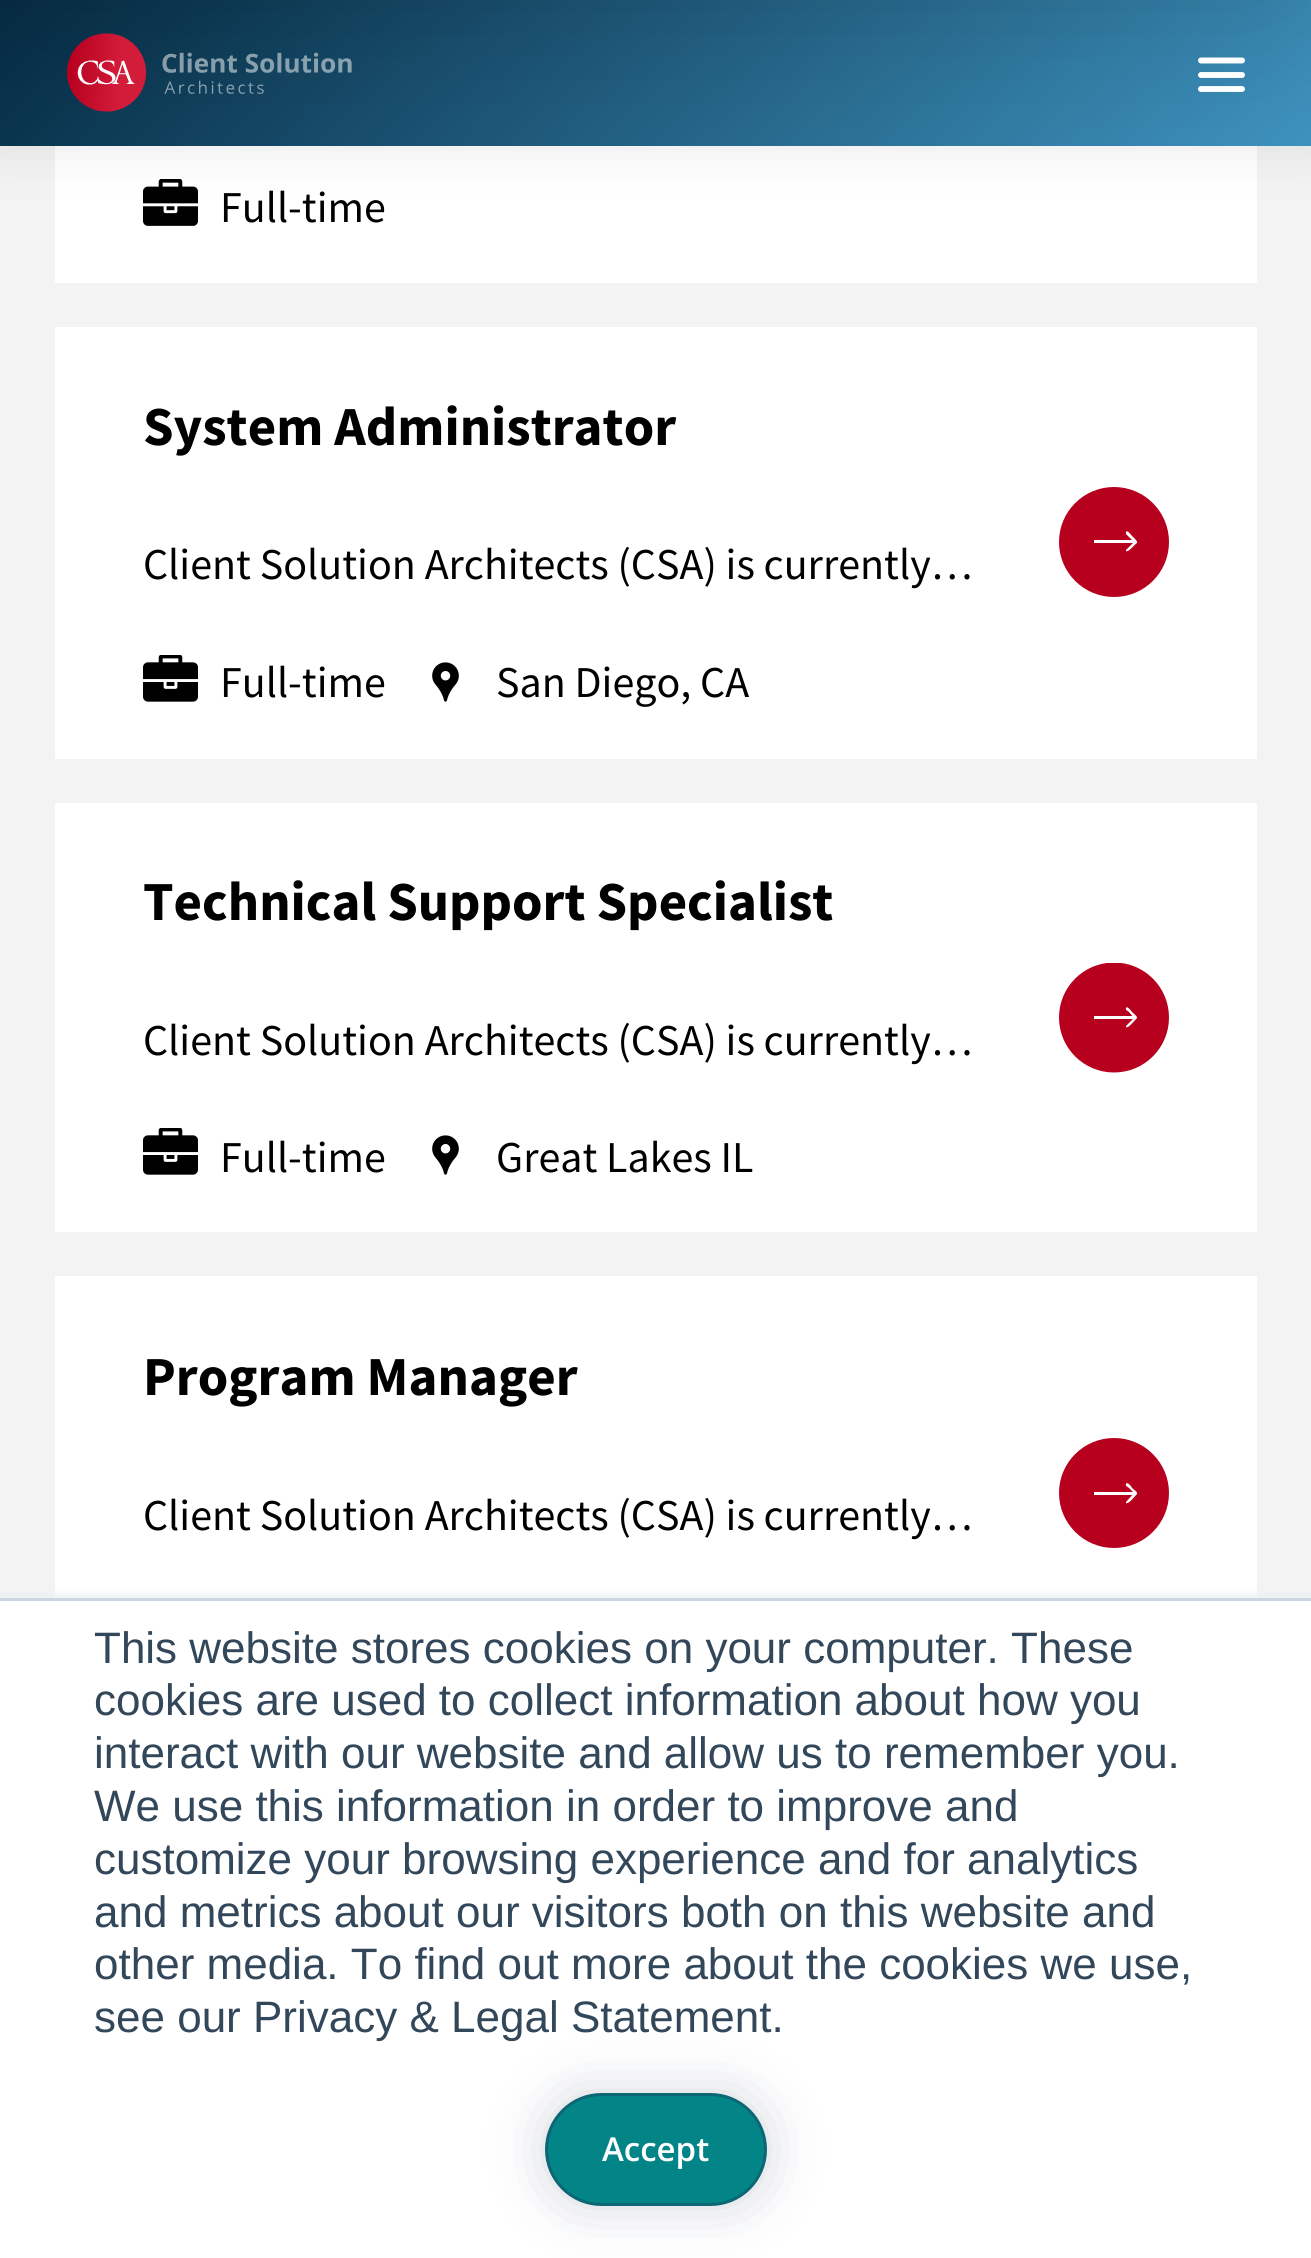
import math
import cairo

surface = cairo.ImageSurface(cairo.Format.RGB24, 1311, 2258)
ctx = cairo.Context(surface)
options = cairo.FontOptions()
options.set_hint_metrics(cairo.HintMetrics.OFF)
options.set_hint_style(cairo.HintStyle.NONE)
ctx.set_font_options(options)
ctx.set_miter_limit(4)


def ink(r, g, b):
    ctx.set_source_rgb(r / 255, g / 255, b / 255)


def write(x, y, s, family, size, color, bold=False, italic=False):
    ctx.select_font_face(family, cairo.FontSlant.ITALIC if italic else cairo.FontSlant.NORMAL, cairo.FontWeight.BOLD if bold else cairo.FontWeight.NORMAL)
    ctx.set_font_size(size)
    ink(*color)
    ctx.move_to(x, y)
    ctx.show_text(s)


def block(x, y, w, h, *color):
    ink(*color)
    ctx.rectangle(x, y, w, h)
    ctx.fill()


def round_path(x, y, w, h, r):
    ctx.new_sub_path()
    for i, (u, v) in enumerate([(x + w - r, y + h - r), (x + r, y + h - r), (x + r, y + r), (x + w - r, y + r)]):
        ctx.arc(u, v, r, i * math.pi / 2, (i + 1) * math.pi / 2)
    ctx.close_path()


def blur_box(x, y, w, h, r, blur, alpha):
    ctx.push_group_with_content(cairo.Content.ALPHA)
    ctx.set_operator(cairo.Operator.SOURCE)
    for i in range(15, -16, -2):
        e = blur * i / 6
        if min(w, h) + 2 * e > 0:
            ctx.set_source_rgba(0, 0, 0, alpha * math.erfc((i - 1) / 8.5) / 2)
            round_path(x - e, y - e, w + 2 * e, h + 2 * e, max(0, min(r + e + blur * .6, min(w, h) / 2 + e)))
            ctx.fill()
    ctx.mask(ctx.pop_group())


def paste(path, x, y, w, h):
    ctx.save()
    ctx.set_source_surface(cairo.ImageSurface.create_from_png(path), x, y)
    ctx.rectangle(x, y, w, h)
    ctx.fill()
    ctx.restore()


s1 = dict(family="Source Sans Pro", size=44, color=(0, 0, 0))
s2 = dict(family="Source Sans Pro", size=55, color=(0, 0, 0), bold=True)
s3 = dict(family="Liberation Sans", size=44, color=(51, 71, 91))
s4 = dict(family="Open Sans SemiBold", size=33, color=(255, 255, 255))

ink(243, 243, 243)
ctx.paint()
block(55, 146, 1202, 137, 255, 255, 255)
paste("pic2.png", 143, 179, 55, 47)
ink(0, 0, 0)
blur_box(0, 0, 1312, 146, 0, 27.5, 0.1)
gradient = cairo.LinearGradient(280, -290, 1032, 436)
gradient.add_color_stop_rgba(0, 0.02, 0.169, 0.263, 1)
gradient.add_color_stop_rgba(0.22, 0.067, 0.255, 0.365, 1)
gradient.add_color_stop_rgba(1, 0.243, 0.573, 0.745, 1)
ctx.set_source(gradient)
ctx.rectangle(0, 0, 1311, 146)
ctx.fill()
ink(0, 0, 0)
blur_box(0, -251, 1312, 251, 44, 69, 0.13)
paste("pic1.png", 67, 33, 285, 79)
ctx.new_path()
ctx.move_to(1201, 60.5)
ctx.line_to(1242, 60.5)
ctx.move_to(1201, 75)
ctx.line_to(1242, 75)
ctx.move_to(1201, 89)
ctx.line_to(1242, 89)
ink(255, 255, 255)
ctx.set_line_width(5.9)
ctx.set_line_cap(cairo.LineCap.ROUND)
ctx.set_line_join(cairo.LineJoin.ROUND)
ctx.stroke()
write(220, 222, "Full-time", **s1)
block(55, 327, 1202, 432, 255, 255, 255)
write(143, 445, "System Administrator", **s2)
write(143, 579, "Client Solution Architects (CSA) is currently…", **s1)
paste("pic3.png", 143, 655, 55, 47)
write(220, 697, "Full-time", **s1)
paste("pic4.png", 432, 662, 27, 40)
write(496, 697, "San Diego, CA", **s1)
ink(183, 0, 30)
ctx.new_path()
ctx.arc(1114, 542, 55, 0, 2 * math.pi)
ctx.fill()
ink(255, 255, 255)
ctx.new_path()
ctx.move_to(1137, 543)
ctx.curve_to(1138, 541, 1133, 537, 1132, 536)
ctx.curve_to(1132, 536, 1127, 529, 1126, 532)
ctx.curve_to(1125, 534, 1128, 536, 1129, 537)
ctx.line_to(1134, 542)
ctx.line_to(1126, 550)
ctx.line_to(1126, 551)
ctx.curve_to(1128, 553, 1135, 544, 1137, 543)
ctx.close_path()
ctx.move_to(1094, 543)
ctx.line_to(1136, 543)
ctx.line_to(1136, 540)
ctx.line_to(1094, 540)
ctx.close_path()
ctx.fill()
block(55, 803, 1202, 429, 255, 255, 255)
write(143, 920, "Technical Support Specialist", **s2)
write(143, 1055, "Client Solution Architects (CSA) is currently…", **s1)
paste("pic3.png", 143, 1128, 55, 47)
write(220, 1172, "Full-time", **s1)
paste("pic4.png", 432, 1135, 27, 40)
write(496, 1172, "Great Lakes IL", **s1)
ctx.save()
ctx.rectangle(1059, 963, 110, 110)
ctx.clip()
ink(183, 0, 30)
ctx.arc(1114, 1017.5, 55, 0, 2 * math.pi)
ctx.fill()
ctx.restore()
ink(255, 255, 255)
ctx.new_path()
ctx.move_to(1137, 1018)
ctx.curve_to(1138, 1017, 1133, 1013, 1132, 1012)
ctx.curve_to(1132, 1012, 1127, 1005, 1126, 1008)
ctx.curve_to(1125, 1010, 1128, 1011, 1129, 1012)
ctx.line_to(1134, 1018)
ctx.line_to(1126, 1026)
ctx.line_to(1126, 1027)
ctx.curve_to(1128, 1029, 1135, 1020, 1137, 1018)
ctx.close_path()
ctx.move_to(1094, 1019)
ctx.line_to(1136, 1019)
ctx.line_to(1136, 1016)
ctx.line_to(1094, 1016)
ctx.close_path()
ctx.fill()
block(55, 1276, 1202, 322, 255, 255, 255)
write(143, 1395, "Program Manager", **s2)
write(143, 1530, "Client Solution Architects (CSA) is currently…", **s1)
ink(183, 0, 30)
ctx.new_path()
ctx.arc(1114, 1493, 55, 0, 2 * math.pi)
ctx.fill()
ink(255, 255, 255)
ctx.new_path()
ctx.move_to(1137, 1494)
ctx.curve_to(1138, 1492, 1133, 1489, 1132, 1488)
ctx.curve_to(1132, 1487, 1127, 1481, 1126, 1484)
ctx.curve_to(1125, 1486, 1128, 1487, 1129, 1488)
ctx.line_to(1134, 1493)
ctx.line_to(1126, 1502)
ctx.line_to(1126, 1503)
ctx.curve_to(1128, 1505, 1135, 1496, 1137, 1494)
ctx.close_path()
ctx.move_to(1094, 1495)
ctx.line_to(1136, 1495)
ctx.line_to(1136, 1492)
ctx.line_to(1094, 1492)
ctx.close_path()
ctx.fill()
ink(234, 240, 246)
blur_box(0, 1595, 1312, 663, 0, 4, 1)
block(0, 1601, 1311, 657, 255, 255, 255)
block(0, 1598, 1311, 3, 203, 214, 226)
write(94, 1663, "This website stores cookies on your computer. These", **s3)
write(94, 1715, "cookies are used to collect information about how you", **s3)
write(94, 1768, "interact with our website and allow us to remember you.", **s3)
write(94, 1821, "We use this information in order to improve and", **s3)
write(94, 1874, "customize your browsing experience and for analytics", **s3)
write(94, 1927, "and metrics about our visitors both on this website and", **s3)
write(94, 1979, "other media. To find out more about the cookies we use,", **s3)
write(94, 2032, "see our Privacy & Legal Statement.", **s3)
ink(37, 52, 81)
blur_box(545, 2093, 222, 113, 56.5, 27.5, 0.2)
ink(3, 132, 135)
round_path(546.5, 2094.5, 219, 110, 55)
ctx.fill_preserve()
ink(12, 102, 116)
ctx.set_line_width(3)
ctx.set_line_cap(cairo.LineCap.BUTT)
ctx.set_line_join(cairo.LineJoin.MITER)
ctx.stroke()
write(602, 2161, "Accept", **s4)
surface.write_to_png("screenshot.png")
